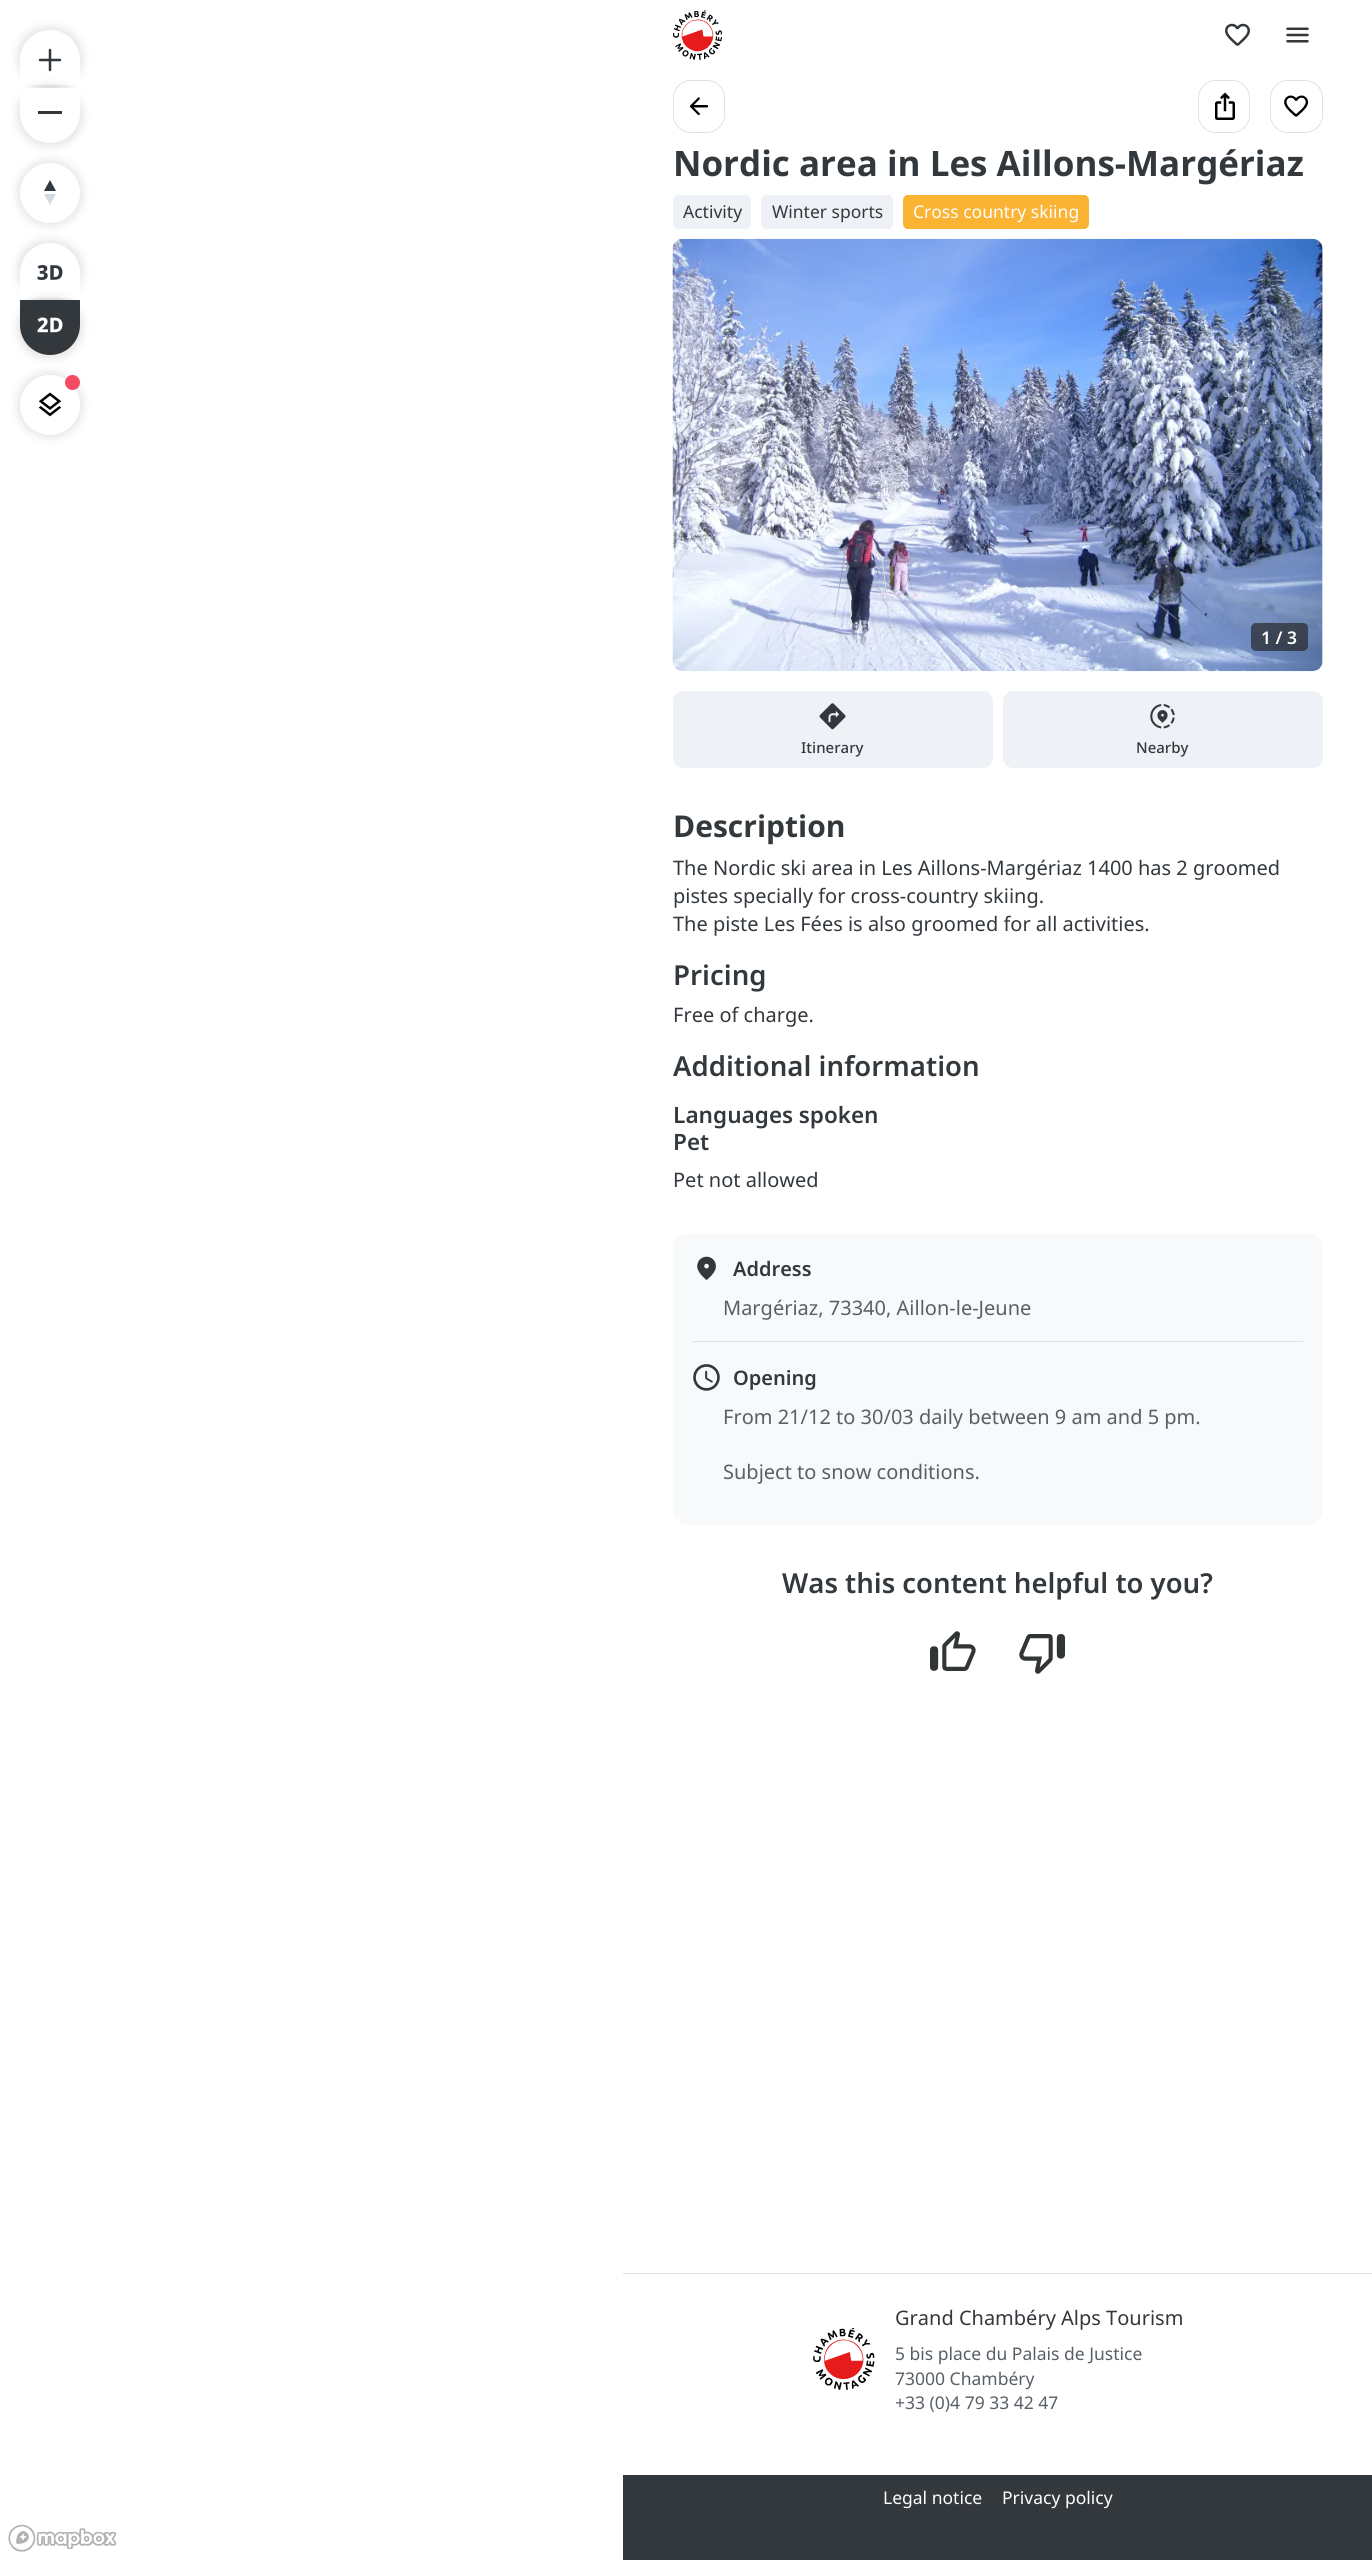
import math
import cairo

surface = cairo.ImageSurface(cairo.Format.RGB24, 1372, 2560)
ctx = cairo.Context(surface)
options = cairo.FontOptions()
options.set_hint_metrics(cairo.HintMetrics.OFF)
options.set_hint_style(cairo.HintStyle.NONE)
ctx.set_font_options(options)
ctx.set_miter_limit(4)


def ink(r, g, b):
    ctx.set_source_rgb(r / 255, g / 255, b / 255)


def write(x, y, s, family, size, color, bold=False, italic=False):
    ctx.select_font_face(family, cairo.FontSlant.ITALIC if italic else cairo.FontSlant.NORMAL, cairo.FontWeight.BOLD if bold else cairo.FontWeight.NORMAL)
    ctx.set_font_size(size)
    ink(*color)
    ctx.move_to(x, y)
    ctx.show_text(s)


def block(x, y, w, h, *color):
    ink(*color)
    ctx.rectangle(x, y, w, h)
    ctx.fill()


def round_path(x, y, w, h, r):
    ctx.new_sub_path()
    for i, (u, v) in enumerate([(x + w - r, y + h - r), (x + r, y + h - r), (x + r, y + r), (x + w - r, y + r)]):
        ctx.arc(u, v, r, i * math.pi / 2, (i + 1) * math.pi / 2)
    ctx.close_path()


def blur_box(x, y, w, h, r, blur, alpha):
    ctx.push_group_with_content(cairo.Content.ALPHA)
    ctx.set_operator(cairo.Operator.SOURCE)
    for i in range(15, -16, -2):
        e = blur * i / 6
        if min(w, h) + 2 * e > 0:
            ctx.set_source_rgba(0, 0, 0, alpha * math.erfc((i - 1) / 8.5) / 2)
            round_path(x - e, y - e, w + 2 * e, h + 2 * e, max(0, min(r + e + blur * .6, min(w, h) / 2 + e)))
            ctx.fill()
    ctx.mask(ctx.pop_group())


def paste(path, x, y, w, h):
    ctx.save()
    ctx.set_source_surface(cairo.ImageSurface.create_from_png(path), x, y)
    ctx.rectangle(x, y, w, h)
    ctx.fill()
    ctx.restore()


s1 = dict(family="Noto Sans", size=35, color=(51, 56, 61), bold=True)
s2 = dict(family="Noto Sans", size=17.5, color=(51, 56, 61))
s3 = dict(family="Noto Sans", size=17.5, color=(255, 255, 255))
s4 = dict(family="Noto Sans SemiBold", size=17.5, color=(255, 255, 255))
s5 = dict(family="Noto Sans Medium", size=15, color=(51, 56, 61))
s6 = dict(family="Noto Sans", size=30, color=(51, 56, 61), bold=True)
s7 = dict(family="Noto Sans", size=20, color=(51, 56, 61))
s8 = dict(family="Noto Sans SemiBold", size=27.5, color=(51, 56, 61))
s9 = dict(family="Noto Sans SemiBold", size=22.5, color=(51, 56, 61))
s10 = dict(family="Noto Sans SemiBold", size=20, color=(51, 56, 61))
s11 = dict(family="Noto Sans", size=20, color=(88, 95, 102))
s12 = dict(family="Noto Sans", size=17.5, color=(88, 95, 102))

ink(255, 255, 255)
ctx.paint()
ink(0, 0, 0)
blur_box(20, 30, 60, 55, 30, 6, 0.16)
ink(255, 255, 255)
ctx.new_path()
ctx.move_to(50, 30)
ctx.curve_to(66.5, 30, 80, 43.5, 80, 60)
ctx.line_to(80, 85)
ctx.line_to(20, 85)
ctx.line_to(20, 60)
ctx.curve_to(20, 43.5, 33.5, 30, 50, 30)
ctx.close_path()
ctx.fill()
paste("pic1.png", 38, 48, 24, 24)
ink(0, 0, 0)
blur_box(20, 88, 60, 55, 30, 6, 0.16)
ink(255, 255, 255)
ctx.new_path()
ctx.move_to(20, 88)
ctx.line_to(80, 88)
ctx.line_to(80, 113)
ctx.curve_to(80, 129.5, 66.5, 143, 50, 143)
ctx.curve_to(33.5, 143, 20, 129.5, 20, 113)
ctx.close_path()
ctx.fill()
block(38, 111, 24, 3, 51, 56, 61)
ink(0, 0, 0)
blur_box(20, 163, 60, 60, 30, 6, 0.16)
ink(255, 255, 255)
ctx.arc(50, 193, 30, 0, 2 * math.pi)
ctx.fill()
ink(51, 56, 61)
ctx.new_path()
ctx.move_to(44, 191)
ctx.line_to(50, 180)
ctx.line_to(56, 191)
ctx.close_path()
ctx.fill()
ink(211, 218, 224)
ctx.new_path()
ctx.move_to(44, 194)
ctx.line_to(50, 205)
ctx.line_to(56, 194)
ctx.close_path()
ctx.fill()
ink(0, 0, 0)
blur_box(20, 243, 60, 55, 30, 6, 0.16)
ink(255, 255, 255)
ctx.new_path()
ctx.move_to(50, 243)
ctx.curve_to(66.5, 243, 80, 256.5, 80, 273)
ctx.line_to(80, 298)
ctx.line_to(20, 298)
ctx.line_to(20, 273)
ctx.curve_to(20, 256.5, 33.5, 243, 50, 243)
ctx.close_path()
ctx.fill()
paste("pic2.png", 37, 265, 26, 15)
ink(0, 0, 0)
blur_box(20, 300, 60, 55, 30, 6, 0.16)
ink(51, 56, 61)
ctx.new_path()
ctx.move_to(20, 300)
ctx.line_to(80, 300)
ctx.line_to(80, 325)
ctx.curve_to(80, 341.5, 66.5, 355, 50, 355)
ctx.curve_to(33.5, 355, 20, 341.5, 20, 325)
ctx.close_path()
ctx.fill()
paste("pic3.png", 37, 317, 26, 16)
ink(0, 0, 0)
blur_box(20, 375, 60, 60, 30, 6, 0.16)
ink(255, 255, 255)
ctx.arc(50, 405, 30, 0, 2 * math.pi)
ctx.fill()
ink(244, 76, 101)
ctx.arc(72.5, 382.5, 7.5, 0, 2 * math.pi)
ctx.fill()
paste("pic4.png", 38, 392, 24, 25)
paste("pic5.png", 8, 2524, 109, 28)
paste("pic6.png", 673, 10, 49, 50)
paste("pic7.png", 1225, 23, 25, 23)
paste("pic8.png", 1286, 27, 23, 16)
round_path(673.5, 80.5, 51, 52, 17.5)
ink(220, 225, 229)
ctx.set_line_width(1)
ctx.stroke()
paste("pic9.png", 689, 97, 20, 19)
round_path(1198.5, 80.5, 51, 52, 17.5)
ctx.stroke()
paste("pic10.png", 1215, 92, 20, 28)
round_path(1270.5, 80.5, 52, 52, 17.5)
ctx.stroke()
paste("pic11.png", 1284, 95, 25, 22)
write(673, 176, "Nordic area in Les Aillons-Margériaz", **s1)
ink(238, 241, 245)
round_path(673, 195, 78, 34, 5)
ctx.fill()
write(683, 218, "Activity", **s2)
ink(238, 241, 245)
round_path(761, 195, 132, 34, 5)
ctx.fill()
write(772, 218, "Winter sports", **s2)
ink(250, 179, 51)
round_path(903, 195, 186, 34, 5)
ctx.fill()
write(913, 218, "Cross country skiing", **s3)
paste("pic12.png", 673, 239, 650, 432)
paste("pic13.png", 672, 238, 651, 434)
ctx.set_source_rgba(0.133, 0.133, 0.133, 0.66)
round_path(1251, 623, 57, 28, 5)
ctx.fill()
write(1261, 644, "1 / 3", **s4)
ink(238, 241, 245)
round_path(673, 691, 320, 77, 10)
ctx.fill()
paste("pic14.png", 819, 703, 27, 27)
write(801, 753, "Itinerary", **s5)
ink(238, 241, 245)
round_path(1003, 691, 320, 77, 10)
ctx.fill()
paste("pic15.png", 1150, 704, 25, 25)
write(1136, 753, "Nearby", **s5)
write(673, 837, "Description", **s6)
write(673, 875, "The Nordic ski area in Les Aillons-Margériaz 1400 has 2 groomed", **s7)
write(673, 903, "pistes specially for cross-country skiing.", **s7)
write(673, 931, "The piste Les Fées is also groomed for all activities.", **s7)
write(673, 985, "Pricing", **s8)
write(673, 1022, "Free of charge.", **s7)
write(673, 1076, "Additional information", **s8)
write(673, 1123, "Languages spoken", **s9)
write(673, 1150, "Pet", **s9)
write(673, 1187, "Pet not allowed", **s7)
ink(247, 249, 250)
round_path(673, 1234, 650, 291, 15)
ctx.fill()
block(693, 1341, 610, 1, 220, 225, 229)
paste("pic16.png", 697, 1256, 19, 24)
write(733, 1276, "Address", **s10)
write(723, 1315, "Margériaz, 73340, Aillon-le-Jeune", **s11)
paste("pic17.png", 693, 1364, 27, 27)
write(733, 1385, "Opening", **s10)
write(723, 1424, "From 21/12 to 30/03 daily between 9 am and 5 pm.", **s11)
write(723, 1479, "Subject to snow conditions.", **s11)
write(782, 1593, "Was this content helpful to you?", **s8)
paste("pic18.png", 929, 1631, 47, 40)
paste("pic19.png", 1019, 1634, 46, 40)
block(623, 2273, 749, 1, 220, 225, 229)
paste("pic20.png", 813, 2328, 62, 62)
write(895, 2325, "Grand Chambéry Alps Tourism", **s7)
write(895, 2360, "5 bis place du Palais de Justice", **s12)
write(895, 2385, "73000 Chambéry", **s12)
write(895, 2409, "+33 (0)4 79 33 42 47", **s12)
block(623, 2475, 749, 85, 51, 56, 61)
write(883, 2504, "Legal notice", **s3)
write(1002, 2504, "Privacy policy", **s3)
surface.write_to_png("screenshot.png")
